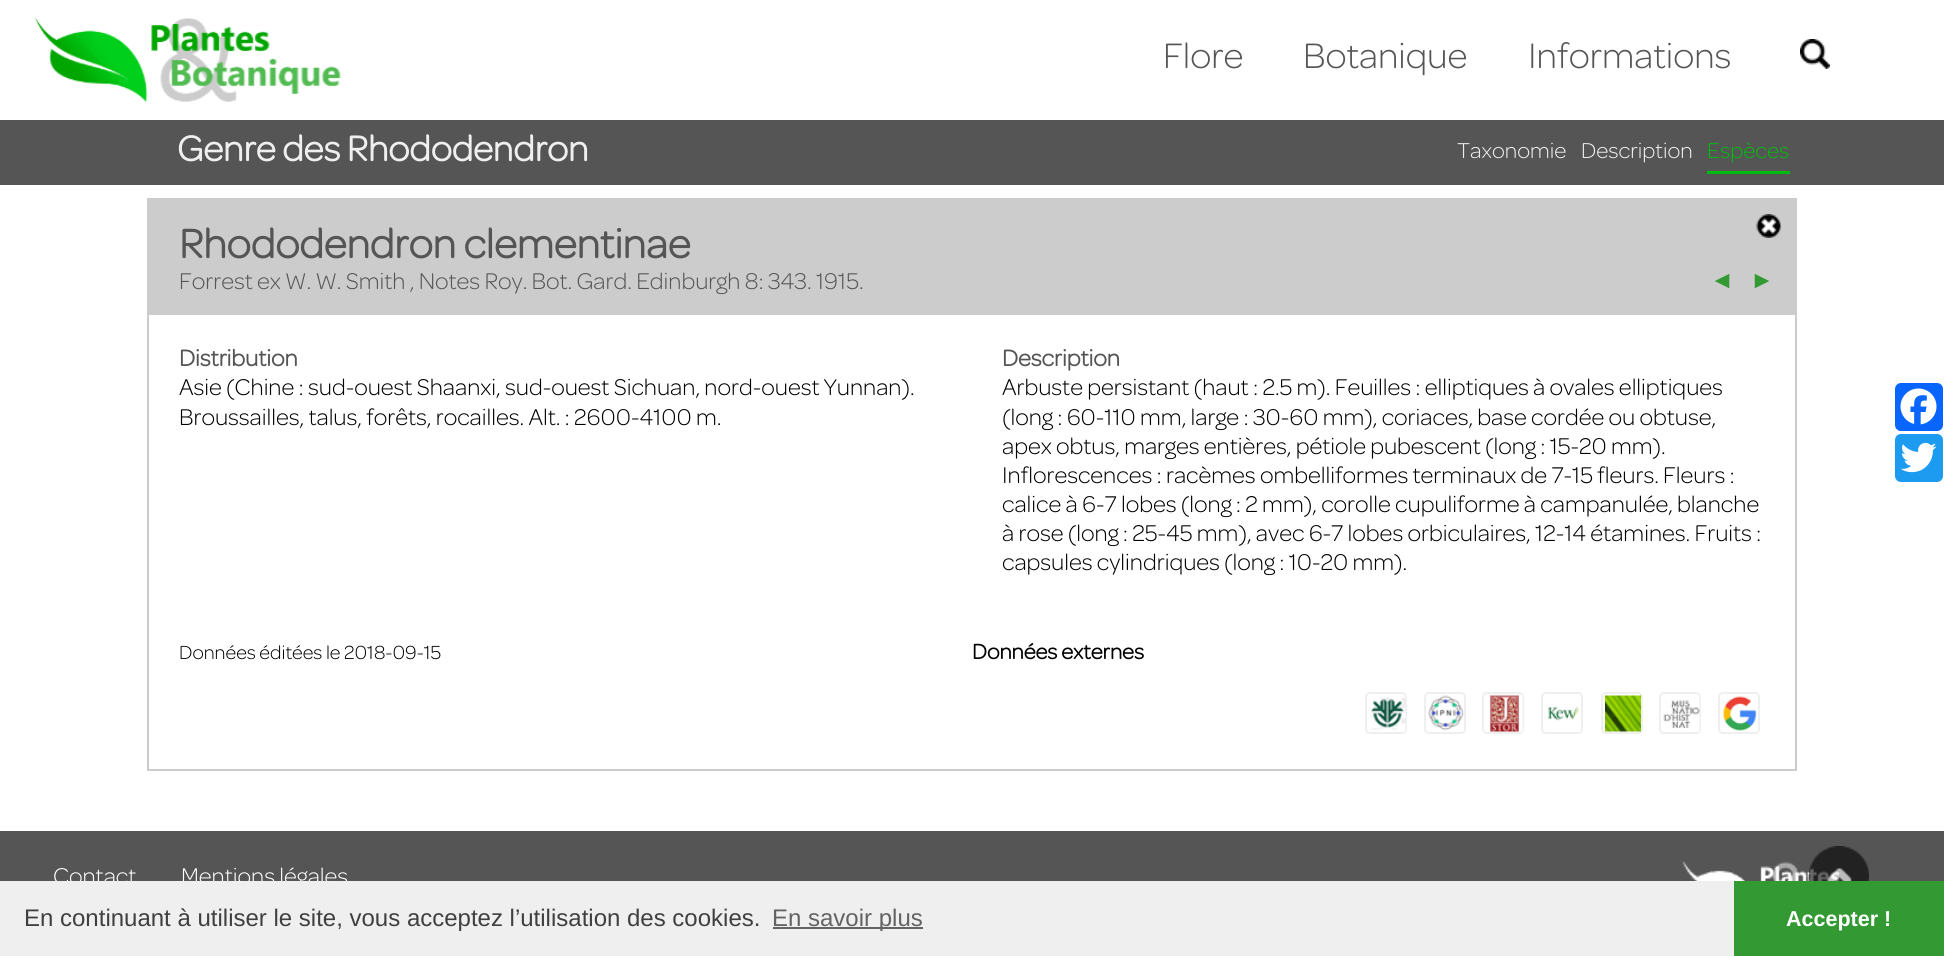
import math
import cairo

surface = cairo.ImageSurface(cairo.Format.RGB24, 1944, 956)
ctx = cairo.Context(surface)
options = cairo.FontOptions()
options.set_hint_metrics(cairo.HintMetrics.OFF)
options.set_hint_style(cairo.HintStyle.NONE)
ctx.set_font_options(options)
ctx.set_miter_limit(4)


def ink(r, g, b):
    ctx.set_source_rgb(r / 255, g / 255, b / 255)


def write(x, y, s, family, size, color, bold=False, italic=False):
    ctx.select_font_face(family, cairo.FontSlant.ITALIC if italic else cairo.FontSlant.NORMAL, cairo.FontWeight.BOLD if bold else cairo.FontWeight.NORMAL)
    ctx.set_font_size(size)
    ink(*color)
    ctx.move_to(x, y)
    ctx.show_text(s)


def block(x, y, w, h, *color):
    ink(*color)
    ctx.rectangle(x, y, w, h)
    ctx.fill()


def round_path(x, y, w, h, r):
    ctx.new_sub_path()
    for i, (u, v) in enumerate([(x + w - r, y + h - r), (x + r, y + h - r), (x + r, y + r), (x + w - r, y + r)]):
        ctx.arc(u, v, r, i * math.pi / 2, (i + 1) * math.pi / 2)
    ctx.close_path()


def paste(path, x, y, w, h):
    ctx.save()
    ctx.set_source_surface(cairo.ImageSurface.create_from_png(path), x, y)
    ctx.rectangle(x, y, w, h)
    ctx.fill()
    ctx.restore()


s1 = dict(family="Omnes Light", size=37.75, color=(85, 85, 85))
s2 = dict(family="Omnes", size=37.75, color=(239, 239, 239), bold=True)
s3 = dict(family="Omnes Light", size=23, color=(239, 239, 239))
s4 = dict(family="Omnes Light", size=23, color=(0, 187, 14))
s5 = dict(family="Omnes", size=43.25, color=(85, 85, 85), bold=True)
s6 = dict(family="Omnes Light", size=24.3, color=(85, 85, 85))
s7 = dict(family="Liberation Sans", size=24.3, color=(51, 153, 51))
s8 = dict(family="Omnes", size=24.3, color=(85, 85, 85), bold=True)
s9 = dict(family="Omnes Light", size=24.3, color=(0, 0, 0))
s10 = dict(family="Omnes Light", size=20.25, color=(0, 0, 0))
s11 = dict(family="Omnes", size=22.5, color=(0, 0, 0), bold=True)
s12 = dict(family="Omnes Light", size=24.3, color=(255, 255, 255))
s13 = dict(family="Liberation Sans", size=24, color=(64, 64, 64))
s14 = dict(family="Liberation Sans", size=24, color=(99, 99, 99))
s15 = dict(family="Liberation Sans", size=21.5, color=(255, 255, 255), bold=True)

ink(255, 255, 255)
ctx.paint()
paste("pic1.png", 34, 17, 307, 85)
write(1163, 68, "Flore", **s1)
write(1303, 68, "Botanique", **s1)
write(1528, 68, "Informations", **s1)
paste("pic2.png", 1800, 39, 30, 30)
block(0, 120, 1944, 65, 85, 85, 85)
write(177, 161, "Genre des Rhododendron", **s2)
write(1457, 158, "Taxonomie", **s3)
write(1581, 158, "Description", **s3)
block(1707, 171, 83, 3, 0, 187, 14)
write(1707, 158, "Espèces", **s4)
ctx.rectangle(148, 199, 1648, 571)
ink(204, 204, 204)
ctx.stroke()
block(149, 200, 1646, 115, 204, 204, 204)
write(179, 258, "Rhododendron clementinae", **s5)
paste("pic3.png", 1756, 214, 25, 24)
write(179, 289, "Forrest ex W. W. Smith , Notes Roy. Bot. Gard. Edinburgh 8: 343. 1915.", **s6)
write(1710, 288, "◄", **s7)
write(1750, 288, "►", **s7)
write(179, 366, "Distribution", **s8)
write(179, 395, "Asie (Chine : sud-ouest Shaanxi, sud-ouest Sichuan, nord-ouest Yunnan).", **s9)
write(179, 425, "Broussailles, talus, forêts, rocailles. Alt. : 2600-4100 m.", **s9)
write(1002, 366, "Description", **s8)
write(1002, 395, "Arbuste persistant (haut : 2.5 m). Feuilles : elliptiques à ovales elliptiques", **s9)
write(1002, 425, "(long : 60-110 mm, large : 30-60 mm), coriaces, base cordée ou obtuse,", **s9)
write(1002, 454, "apex obtus, marges entières, pétiole pubescent (long : 15-20 mm).", **s9)
write(1002, 483, "Inflorescences : racèmes ombelliformes terminaux de 7-15 fleurs. Fleurs :", **s9)
write(1002, 512, "calice à 6-7 lobes (long : 2 mm), corolle cupuliforme à campanulée, blanche", **s9)
write(1002, 541, "à rose (long : 25-45 mm), avec 6-7 lobes orbiculaires, 12-14 étamines. Fruits :", **s9)
write(1002, 570, "capsules cylindriques (long : 10-20 mm).", **s9)
write(179, 659, "Données éditées le 2018-09-15", **s10)
write(972, 659, "Données externes", **s11)
round_path(1366, 693, 40, 40, 4)
ink(239, 239, 239)
ctx.stroke()
paste("pic4.png", 1370, 695, 36, 37)
round_path(1425, 693, 40, 40, 4)
ctx.stroke()
paste("pic5.png", 1428, 695, 36, 36)
round_path(1483, 693, 40, 40, 4)
ctx.stroke()
paste("pic6.png", 1490, 695, 33, 37)
round_path(1542, 693, 40, 40, 4)
ctx.stroke()
paste("pic7.png", 1547, 706, 34, 26)
round_path(1602, 693, 40, 40, 4)
ctx.stroke()
paste("pic8.png", 1605, 695, 36, 37)
round_path(1660, 693, 40, 40, 4)
ctx.stroke()
paste("pic9.png", 1663, 695, 37, 37)
round_path(1719, 693, 40, 40, 4)
ctx.stroke()
paste("pic10.png", 1723, 696, 35, 36)
ink(8, 102, 255)
round_path(1895, 383, 48, 48, 6)
ctx.fill()
paste("pic11.png", 1900, 388, 37, 37)
ink(29, 155, 240)
round_path(1895, 434, 48, 48, 6)
ctx.fill()
paste("pic12.png", 1900, 442, 37, 31)
block(0, 831, 1944, 50, 85, 85, 85)
write(53, 884, "Contact", **s12)
write(181, 884, "Mentions légales", **s12)
paste("pic13.png", 1682, 861, 159, 20)
paste("pic14.png", 1809, 846, 60, 35)
block(0, 881, 1734, 75, 239, 239, 239)
write(24, 926, "En continuant à utiliser le site, vous acceptez l’utilisation des cookies.", **s13)
block(773, 927, 150, 2, 99, 99, 99)
write(772, 926, "En savoir plus", **s14)
block(1734, 881, 210, 75, 51, 153, 51)
write(1786, 926, "Accepter !", **s15)
surface.write_to_png("screenshot.png")
